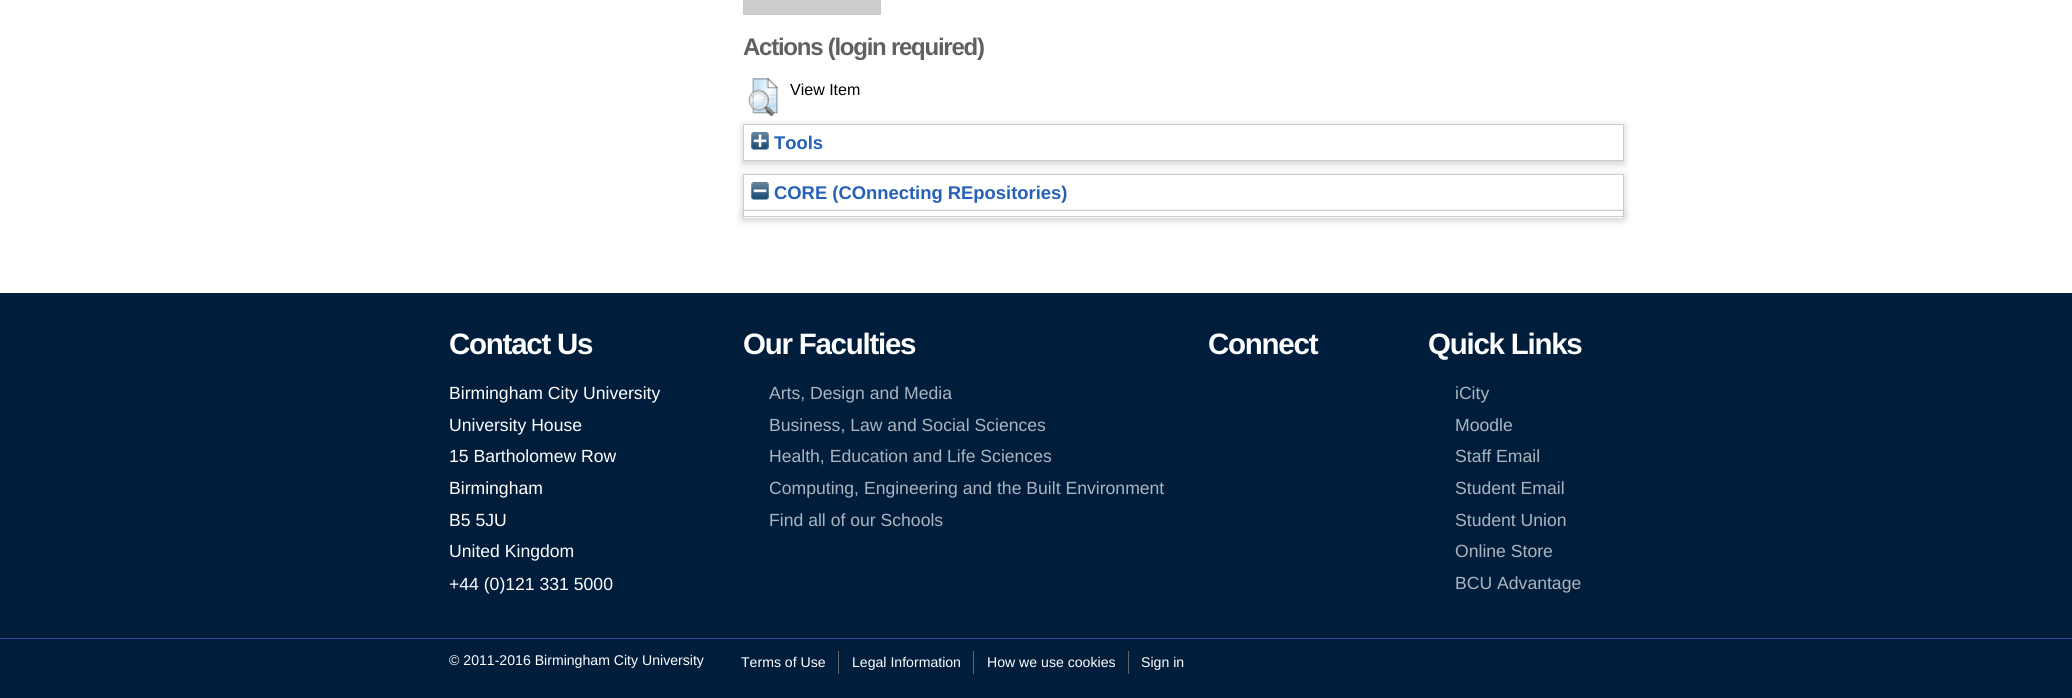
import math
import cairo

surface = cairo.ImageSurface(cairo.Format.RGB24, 2072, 698)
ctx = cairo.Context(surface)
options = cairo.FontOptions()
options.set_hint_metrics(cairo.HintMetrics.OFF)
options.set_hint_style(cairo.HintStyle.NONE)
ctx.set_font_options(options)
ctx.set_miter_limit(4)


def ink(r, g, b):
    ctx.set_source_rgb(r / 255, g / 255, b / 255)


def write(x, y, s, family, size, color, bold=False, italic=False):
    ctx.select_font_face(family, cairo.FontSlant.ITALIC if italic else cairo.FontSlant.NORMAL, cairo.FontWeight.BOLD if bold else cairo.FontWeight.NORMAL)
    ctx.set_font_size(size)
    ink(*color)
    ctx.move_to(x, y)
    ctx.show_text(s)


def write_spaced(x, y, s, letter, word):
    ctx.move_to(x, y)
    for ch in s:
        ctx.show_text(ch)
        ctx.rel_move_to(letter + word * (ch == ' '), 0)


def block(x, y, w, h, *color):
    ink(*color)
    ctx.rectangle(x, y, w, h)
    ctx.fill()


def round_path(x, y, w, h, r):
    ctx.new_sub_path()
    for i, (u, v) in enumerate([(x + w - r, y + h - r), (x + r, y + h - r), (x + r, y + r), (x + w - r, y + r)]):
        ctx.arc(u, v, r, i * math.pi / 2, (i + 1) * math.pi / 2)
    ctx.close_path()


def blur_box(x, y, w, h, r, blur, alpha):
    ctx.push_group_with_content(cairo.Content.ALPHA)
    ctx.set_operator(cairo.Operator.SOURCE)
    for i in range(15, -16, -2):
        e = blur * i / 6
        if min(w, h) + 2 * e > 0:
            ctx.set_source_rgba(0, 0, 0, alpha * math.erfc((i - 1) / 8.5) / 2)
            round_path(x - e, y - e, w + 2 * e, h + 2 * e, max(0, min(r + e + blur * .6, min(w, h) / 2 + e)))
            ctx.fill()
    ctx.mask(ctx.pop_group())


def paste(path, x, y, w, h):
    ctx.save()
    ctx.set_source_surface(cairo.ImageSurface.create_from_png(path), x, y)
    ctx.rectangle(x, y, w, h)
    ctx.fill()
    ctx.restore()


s1 = dict(family="Liberation Sans", size=16, color=(0, 0, 0))
s2 = dict(family="Liberation Sans", size=18.4, color=(37, 96, 185), bold=True)
s3 = dict(family="Liberation Sans", size=17.6, color=(255, 255, 255))
s4 = dict(family="Liberation Sans", size=17.6, color=(171, 181, 191))
s5 = dict(family="Liberation Sans", size=14.1, color=(255, 255, 255))

ink(255, 255, 255)
ctx.paint()
block(743, 0, 138, 15, 204, 204, 204)
ctx.select_font_face("Liberation Sans", cairo.FontSlant.NORMAL, cairo.FontWeight.BOLD)
ctx.set_font_size(24)
ink(96, 96, 96)
write_spaced(743, 55, "Actions (login required)", -1.25, 0)
ink(100, 100, 100)
blur_box(743, 126, 881, 38, 0, 4, 0.3)
paste("pic1.png", 748, 78, 30, 38)
write(790, 95, "View Item", **s1)
ink(255, 255, 255)
ctx.rectangle(743.5, 124.5, 880, 36)
ctx.fill_preserve()
ink(204, 204, 204)
ctx.set_line_width(1)
ctx.stroke()
paste("pic2.png", 751, 132, 18, 18)
write(774, 149, "Tools", **s2)
ink(100, 100, 100)
blur_box(743, 176, 881, 38, 0, 4, 0.3)
ink(255, 255, 255)
ctx.rectangle(743.5, 174.5, 880, 36)
ctx.fill_preserve()
ink(204, 204, 204)
ctx.stroke()
paste("pic3.png", 751, 182, 18, 18)
ink(100, 100, 100)
blur_box(743, 214, 881, 6, 0, 4, 0.3)
write(774, 199, "CORE (COnnecting REpositories)", **s2)
block(743, 211, 881, 7, 255, 255, 255)
block(1623, 211, 1, 7, 204, 204, 204)
block(743, 216, 881, 1, 204, 204, 204)
block(743, 211, 1, 7, 204, 204, 204)
block(0, 293, 2072, 405, 0, 30, 60)
ctx.set_font_size(29.5)
ink(255, 255, 255)
write_spaced(449, 354, "Contact Us", -1.25, 0)
write(449, 399, "Birmingham City University", **s3)
write(449, 431, "University House", **s3)
write(449, 462, "15 Bartholomew Row", **s3)
write(449, 494, "Birmingham", **s3)
write(449, 526, "B5 5JU", **s3)
write(449, 557, "United Kingdom", **s3)
write(449, 590, "+44 (0)121 331 5000", **s3)
ctx.select_font_face("Liberation Sans", cairo.FontSlant.NORMAL, cairo.FontWeight.BOLD)
ctx.set_font_size(29.5)
write_spaced(743, 354, "Our Faculties", -1.25, 0)
write(769, 399, "Arts, Design and Media", **s4)
write(769, 431, "Business, Law and Social Sciences", **s4)
write(769, 462, "Health, Education and Life Sciences", **s4)
write(769, 494, "Computing, Engineering and the Built Environment", **s4)
write(769, 526, "Find all of our Schools", **s4)
ctx.select_font_face("Liberation Sans", cairo.FontSlant.NORMAL, cairo.FontWeight.BOLD)
ctx.set_font_size(29.5)
ink(255, 255, 255)
write_spaced(1208, 354, "Connect", -1.25, 0)
write_spaced(1428, 354, "Quick Links", -1.25, 0)
write(1455, 399, "iCity", **s4)
write(1455, 431, "Moodle", **s4)
write(1455, 462, "Staff Email", **s4)
write(1455, 494, "Student Email", **s4)
write(1455, 526, "Student Union", **s4)
write(1455, 557, "Online Store", **s4)
write(1455, 589, "BCU Advantage", **s4)
block(0, 638, 2072, 1, 60, 70, 156)
write(449, 665, "© 2011-2016 Birmingham City University", **s5)
block(838, 651, 1, 23, 102, 102, 102)
write(741, 667, "Terms of Use", **s5)
block(973, 651, 1, 23, 102, 102, 102)
write(852, 667, "Legal Information", **s5)
block(1128, 651, 1, 23, 102, 102, 102)
write(987, 667, "How we use cookies", **s5)
write(1141, 667, "Sign in", **s5)
surface.write_to_png("screenshot.png")
